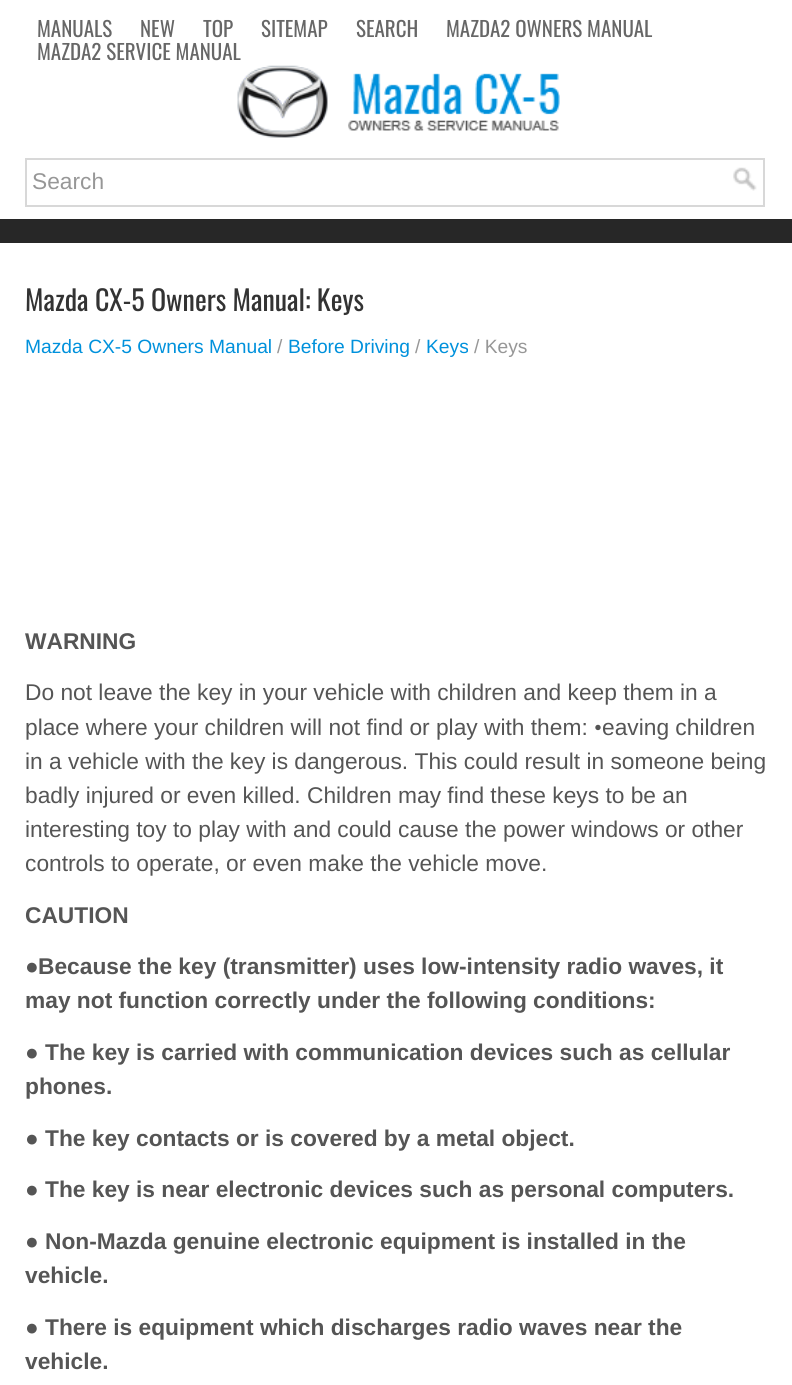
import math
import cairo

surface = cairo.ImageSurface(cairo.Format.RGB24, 792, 1385)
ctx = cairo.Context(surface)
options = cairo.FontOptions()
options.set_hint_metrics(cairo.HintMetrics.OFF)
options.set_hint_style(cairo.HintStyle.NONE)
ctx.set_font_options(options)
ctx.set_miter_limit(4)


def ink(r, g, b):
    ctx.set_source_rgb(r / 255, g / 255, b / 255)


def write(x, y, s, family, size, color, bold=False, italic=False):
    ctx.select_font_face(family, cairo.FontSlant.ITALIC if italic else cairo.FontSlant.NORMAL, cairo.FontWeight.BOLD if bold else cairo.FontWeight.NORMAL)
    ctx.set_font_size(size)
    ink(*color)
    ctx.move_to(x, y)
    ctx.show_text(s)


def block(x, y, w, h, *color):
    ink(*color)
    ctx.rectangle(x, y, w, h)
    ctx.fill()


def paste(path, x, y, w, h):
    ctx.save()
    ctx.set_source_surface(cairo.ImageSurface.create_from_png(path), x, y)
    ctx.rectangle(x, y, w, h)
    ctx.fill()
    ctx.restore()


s1 = dict(family="Oswald", size=21, color=(103, 103, 103))
s2 = dict(family="Liberation Sans", size=22.75, color=(151, 151, 151))
s3 = dict(family="Oswald", size=28, color=(51, 51, 51))
s4 = dict(family="Liberation Sans", size=19.25, color=(0, 145, 220))
s5 = dict(family="Liberation Sans", size=19.25, color=(151, 151, 151))
s6 = dict(family="Liberation Sans", size=22.75, color=(85, 85, 85), bold=True)
s7 = dict(family="Liberation Sans", size=22.75, color=(85, 85, 85))
s8 = dict(family="Liberation Serif", size=22.75, color=(85, 85, 85))
s9 = dict(family="Liberation Serif", size=22.75, color=(85, 85, 85), bold=True)

ink(255, 255, 255)
ctx.paint()
block(0, 219, 792, 24, 39, 39, 39)
write(37, 37, "MANUALS", **s1)
write(140, 37, "NEW", **s1)
write(203, 37, "TOP", **s1)
write(261, 37, "SITEMAP", **s1)
write(356, 37, "SEARCH", **s1)
write(446, 37, "MAZDA2 OWNERS MANUAL", **s1)
write(37, 60, "MAZDA2 SERVICE MANUAL", **s1)
paste("pic1.png", 237, 65, 323, 73)
ctx.rectangle(26, 159, 738, 47)
ink(216, 216, 216)
ctx.stroke()
write(32, 189, "Search", **s2)
paste("pic2.png", 733, 167, 24, 24)
write(25, 311, "Mazda CX-5 Owners Manual: Keys", **s3)
write(25, 353, "Mazda CX-5 Owners Manual", **s4)
write(277, 353, "/", **s5)
write(288, 353, "Before Driving", **s4)
write(415, 353, "/", **s5)
write(426, 353, "Keys", **s4)
write(474, 353, "/ Keys", **s5)
write(25, 649, "WARNING", **s6)
write(25, 700, "Do not leave the key in your vehicle with children and keep them in a", **s7)
write(25, 735, "place where your children will not find or play with them:", **s7)
write(594, 735, "•", **s8)
write(602, 735, "eaving children", **s7)
write(25, 769, "in a vehicle with the key is dangerous. This could result in someone being", **s7)
write(25, 803, "badly injured or even killed. Children may find these keys to be an", **s7)
write(25, 837, "interesting toy to play with and could cause the power windows or other", **s7)
write(25, 871, "controls to operate, or even make the vehicle move.", **s7)
write(25, 923, "CAUTION", **s6)
write(25, 974, "●", **s9)
write(38, 974, "Because the key (transmitter) uses low-intensity radio waves, it", **s6)
write(25, 1008, "may not function correctly under the following conditions:", **s6)
write(25, 1060, "●", **s9)
write(45, 1060, "The key is carried with communication devices such as cellular", **s6)
write(25, 1094, "phones.", **s6)
write(25, 1146, "●", **s9)
write(45, 1146, "The key contacts or is covered by a metal object.", **s6)
write(25, 1197, "●", **s9)
write(45, 1197, "The key is near electronic devices such as personal computers.", **s6)
write(25, 1249, "●", **s9)
write(45, 1249, "Non-Mazda genuine electronic equipment is installed in the", **s6)
write(25, 1283, "vehicle.", **s6)
write(25, 1335, "●", **s9)
write(45, 1335, "There is equipment which discharges radio waves near the", **s6)
write(25, 1369, "vehicle.", **s6)
surface.write_to_png("screenshot.png")
